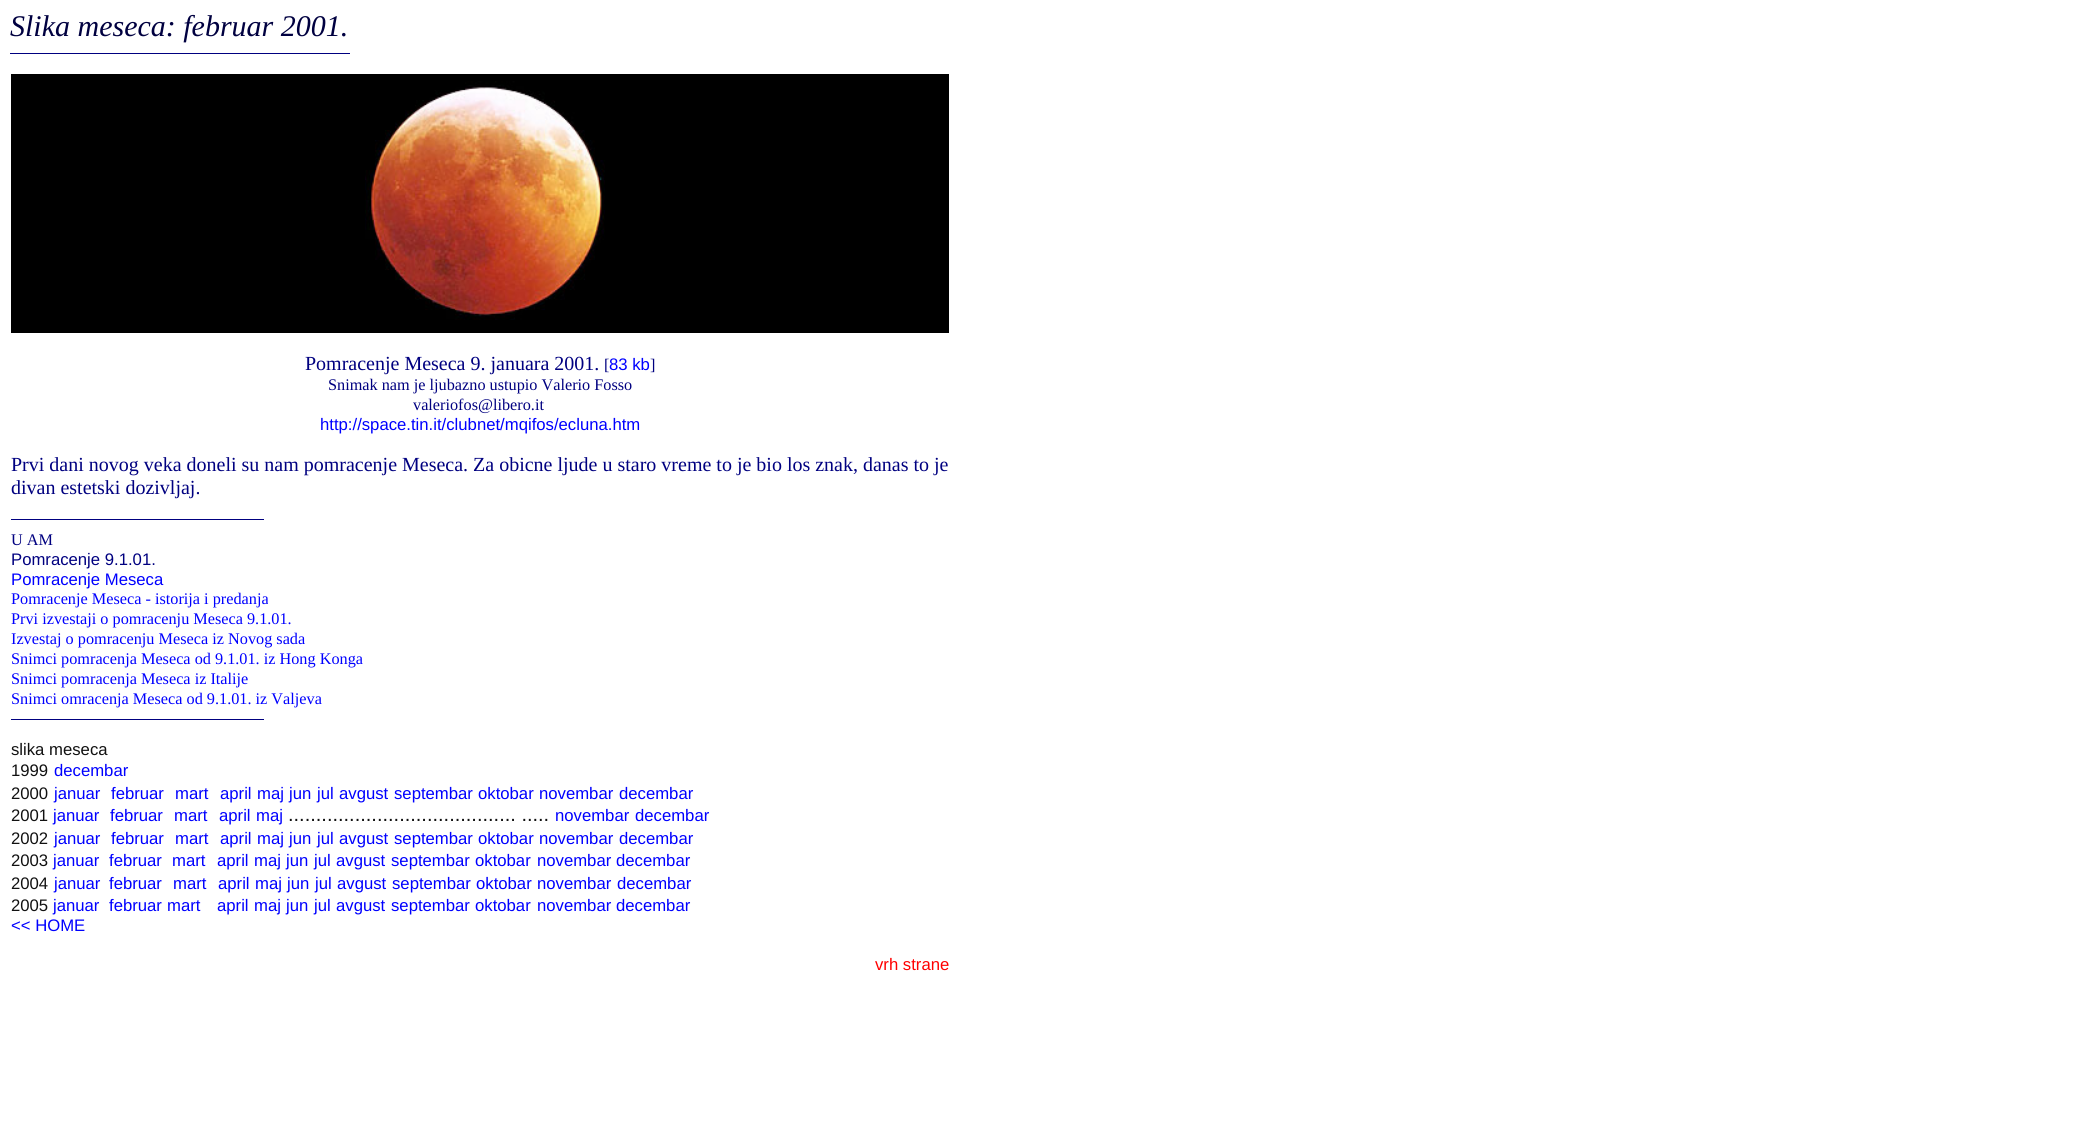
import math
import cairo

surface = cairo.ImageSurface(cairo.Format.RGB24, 2092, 1123)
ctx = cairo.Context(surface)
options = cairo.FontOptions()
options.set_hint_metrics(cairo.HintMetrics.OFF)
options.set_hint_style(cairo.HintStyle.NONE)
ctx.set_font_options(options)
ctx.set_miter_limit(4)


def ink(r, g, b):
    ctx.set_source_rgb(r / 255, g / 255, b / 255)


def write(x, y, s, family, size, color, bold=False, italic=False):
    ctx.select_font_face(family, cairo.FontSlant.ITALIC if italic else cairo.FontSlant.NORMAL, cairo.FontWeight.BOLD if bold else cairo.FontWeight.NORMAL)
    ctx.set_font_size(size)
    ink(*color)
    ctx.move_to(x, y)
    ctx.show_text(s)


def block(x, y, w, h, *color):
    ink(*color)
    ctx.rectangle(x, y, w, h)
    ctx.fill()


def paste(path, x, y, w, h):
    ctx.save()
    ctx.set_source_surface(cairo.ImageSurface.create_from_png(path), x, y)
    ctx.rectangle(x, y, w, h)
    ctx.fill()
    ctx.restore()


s1 = dict(family="Liberation Serif", size=30, color=(0, 0, 64), italic=True)
s2 = dict(family="Liberation Serif", size=20, color=(0, 0, 128))
s3 = dict(family="Liberation Serif", size=16.25, color=(0, 0, 128))
s4 = dict(family="Liberation Sans", size=16.7, color=(0, 0, 255))
s5 = dict(family="Liberation Sans", size=16.7, color=(0, 0, 128))
s6 = dict(family="Liberation Serif", size=16.25, color=(0, 0, 255))
s7 = dict(family="Liberation Sans", size=16.7, color=(17, 17, 17))
s8 = dict(family="Liberation Sans", size=20, color=(17, 17, 17))
s9 = dict(family="Liberation Sans", size=16.7, color=(255, 0, 0))

ink(255, 255, 255)
ctx.paint()
write(10, 36, "Slika meseca: februar 2001.", **s1)
block(10, 53, 340, 1, 0, 0, 128)
block(11, 74, 938, 259, 0, 0, 0)
paste("pic1.png", 365, 81, 240, 239)
write(305, 370, "Pomracenje Meseca 9. januara 2001.", **s2)
write(604, 370, "[", **s3)
write(609, 370, "83 kb", **s4)
write(650, 370, "]", **s3)
write(328, 390, "Snimak nam je ljubazno ustupio Valerio Fosso", **s3)
write(413, 410, "valeriofos@libero.it", **s3)
write(320, 430, "http://space.tin.it/clubnet/mqifos/ecluna.htm", **s4)
write(11, 471, "Prvi dani novog veka doneli su nam pomracenje Meseca. Za obicne ljude u staro vreme to je bio los znak, danas to je", **s2)
write(11, 494, "divan estetski dozivljaj.", **s2)
block(11, 519, 253, 1, 0, 0, 128)
write(11, 545, "U AM", **s3)
write(11, 565, "Pomracenje 9.1.01.", **s5)
write(11, 585, "Pomracenje Meseca", **s4)
write(11, 604, "Pomracenje Meseca - istorija i predanja", **s6)
write(11, 624, "Prvi izvestaji o pomracenju Meseca 9.1.01.", **s6)
write(11, 644, "Izvestaj o pomracenju Meseca iz Novog sada", **s6)
write(11, 664, "Snimci pomracenja Meseca od 9.1.01. iz Hong Konga", **s6)
write(11, 684, "Snimci pomracenja Meseca iz Italije", **s6)
write(11, 704, "Snimci omracenja Meseca od 9.1.01. iz Valjeva", **s6)
block(11, 719, 253, 1, 0, 0, 128)
write(11, 755, "slika meseca", **s7)
write(11, 776, "1999", **s7)
write(54, 776, "decembar", **s4)
write(11, 799, "2000", **s7)
write(54, 799, "januar", **s4)
write(111, 799, "februar", **s4)
write(175, 799, "mart", **s4)
write(220, 799, "april", **s4)
write(257, 799, "maj", **s4)
write(289, 799, "jun", **s4)
write(317, 799, "jul", **s4)
write(339, 799, "avgust", **s4)
write(394, 799, "septembar", **s4)
write(478, 799, "oktobar", **s4)
write(539, 799, "novembar", **s4)
write(619, 799, "decembar", **s4)
write(11, 821, "2001", **s7)
write(53, 821, "januar", **s4)
write(110, 821, "februar", **s4)
write(174, 821, "mart", **s4)
write(219, 821, "april", **s4)
write(256, 821, "maj", **s4)
write(288, 821, "......................................... .....", **s8)
write(555, 821, "novembar", **s4)
write(635, 821, "decembar", **s4)
write(11, 844, "2002", **s7)
write(54, 844, "januar", **s4)
write(111, 844, "februar", **s4)
write(175, 844, "mart", **s4)
write(220, 844, "april", **s4)
write(257, 844, "maj", **s4)
write(289, 844, "jun", **s4)
write(317, 844, "jul", **s4)
write(339, 844, "avgust", **s4)
write(394, 844, "septembar", **s4)
write(478, 844, "oktobar", **s4)
write(539, 844, "novembar", **s4)
write(619, 844, "decembar", **s4)
write(11, 866, "2003", **s7)
write(53, 866, "januar", **s4)
write(109, 866, "februar", **s4)
write(172, 866, "mart", **s4)
write(217, 866, "april", **s4)
write(254, 866, "maj", **s4)
write(286, 866, "jun", **s4)
write(314, 866, "jul", **s4)
write(336, 866, "avgust", **s4)
write(391, 866, "septembar", **s4)
write(475, 866, "oktobar", **s4)
write(537, 866, "novembar", **s4)
write(616, 866, "decembar", **s4)
write(11, 889, "2004", **s7)
write(54, 889, "januar", **s4)
write(109, 889, "februar", **s4)
write(173, 889, "mart", **s4)
write(218, 889, "april", **s4)
write(255, 889, "maj", **s4)
write(287, 889, "jun", **s4)
write(315, 889, "jul", **s4)
write(337, 889, "avgust", **s4)
write(392, 889, "septembar", **s4)
write(476, 889, "oktobar", **s4)
write(537, 889, "novembar", **s4)
write(617, 889, "decembar", **s4)
write(11, 911, "2005", **s7)
write(53, 911, "januar", **s4)
write(109, 911, "februar", **s4)
write(167, 911, "mart", **s4)
write(217, 911, "april", **s4)
write(254, 911, "maj", **s4)
write(286, 911, "jun", **s4)
write(314, 911, "jul", **s4)
write(336, 911, "avgust", **s4)
write(391, 911, "septembar", **s4)
write(475, 911, "oktobar", **s4)
write(537, 911, "novembar", **s4)
write(616, 911, "decembar", **s4)
write(11, 931, "<< HOME", **s4)
write(875, 970, "vrh strane", **s9)
surface.write_to_png("screenshot.png")
